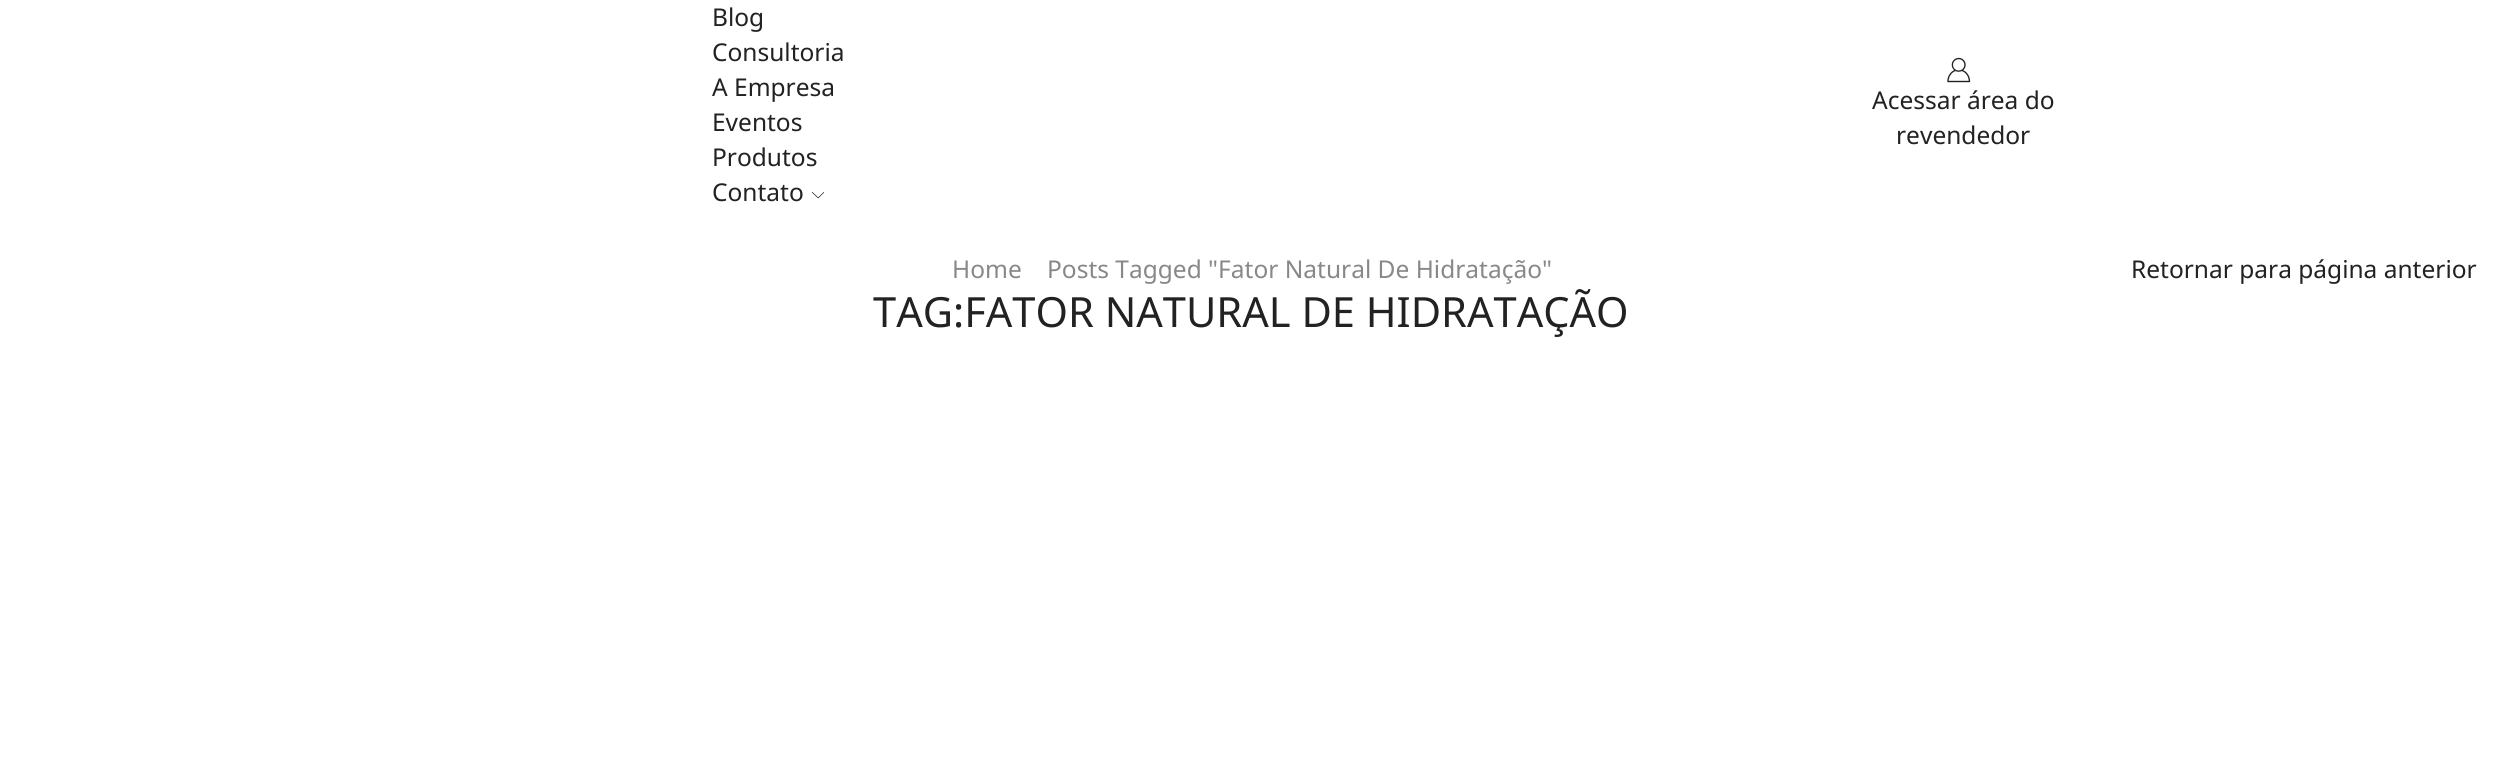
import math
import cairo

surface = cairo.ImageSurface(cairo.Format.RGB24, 2501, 777)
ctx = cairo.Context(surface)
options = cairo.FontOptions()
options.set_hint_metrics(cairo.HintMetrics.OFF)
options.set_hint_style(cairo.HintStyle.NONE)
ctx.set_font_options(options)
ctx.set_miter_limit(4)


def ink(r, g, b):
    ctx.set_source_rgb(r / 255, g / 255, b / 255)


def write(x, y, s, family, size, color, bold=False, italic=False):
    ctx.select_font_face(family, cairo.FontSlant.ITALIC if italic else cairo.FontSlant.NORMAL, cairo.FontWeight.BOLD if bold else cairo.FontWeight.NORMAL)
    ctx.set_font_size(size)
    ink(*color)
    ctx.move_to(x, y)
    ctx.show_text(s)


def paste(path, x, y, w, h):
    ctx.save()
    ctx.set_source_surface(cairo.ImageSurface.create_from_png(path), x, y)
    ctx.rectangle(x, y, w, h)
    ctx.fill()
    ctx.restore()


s1 = dict(family="Noto Sans", size=24.5, color=(34, 34, 34))
s2 = dict(family="Noto Sans", size=24.5, color=(136, 136, 136))
s3 = dict(family="Noto Sans", size=41.6, color=(34, 34, 34))

ink(255, 255, 255)
ctx.paint()
write(712, 26, "Blog", **s1)
write(712, 61, "Consultoria", **s1)
write(712, 96, "A Empresa", **s1)
write(712, 131, "Eventos", **s1)
write(712, 166, "Produtos", **s1)
write(712, 201, "Contato", **s1)
paste("pic1.png", 812, 192, 12, 7)
paste("pic2.png", 1947, 57, 24, 26)
write(1872, 109, "Acessar área do", **s1)
write(1896, 144, "revendedor", **s1)
write(952, 278, "Home", **s2)
write(1047, 278, "Posts Tagged \"Fator Natural De Hidratação\"", **s2)
write(2131, 278, "Retornar para página anterior", **s1)
write(873, 327, "TAG:FATOR NATURAL DE HIDRATAÇÃO", **s3)
surface.write_to_png("screenshot.png")
